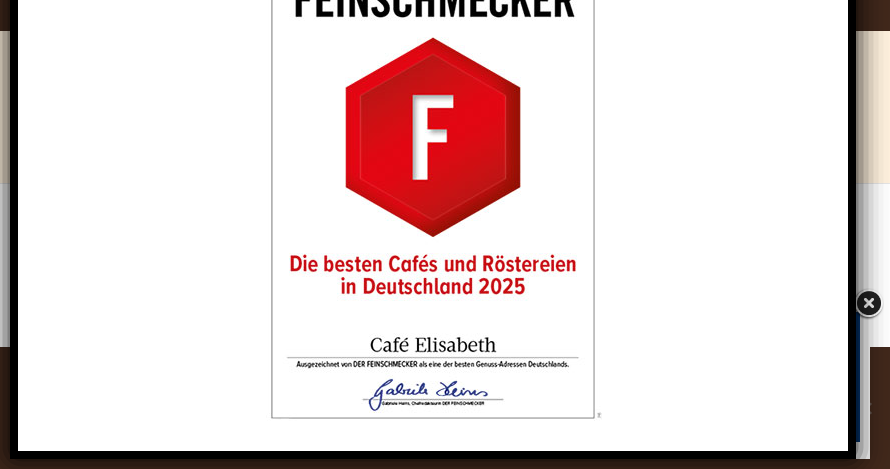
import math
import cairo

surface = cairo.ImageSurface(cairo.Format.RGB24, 890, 469)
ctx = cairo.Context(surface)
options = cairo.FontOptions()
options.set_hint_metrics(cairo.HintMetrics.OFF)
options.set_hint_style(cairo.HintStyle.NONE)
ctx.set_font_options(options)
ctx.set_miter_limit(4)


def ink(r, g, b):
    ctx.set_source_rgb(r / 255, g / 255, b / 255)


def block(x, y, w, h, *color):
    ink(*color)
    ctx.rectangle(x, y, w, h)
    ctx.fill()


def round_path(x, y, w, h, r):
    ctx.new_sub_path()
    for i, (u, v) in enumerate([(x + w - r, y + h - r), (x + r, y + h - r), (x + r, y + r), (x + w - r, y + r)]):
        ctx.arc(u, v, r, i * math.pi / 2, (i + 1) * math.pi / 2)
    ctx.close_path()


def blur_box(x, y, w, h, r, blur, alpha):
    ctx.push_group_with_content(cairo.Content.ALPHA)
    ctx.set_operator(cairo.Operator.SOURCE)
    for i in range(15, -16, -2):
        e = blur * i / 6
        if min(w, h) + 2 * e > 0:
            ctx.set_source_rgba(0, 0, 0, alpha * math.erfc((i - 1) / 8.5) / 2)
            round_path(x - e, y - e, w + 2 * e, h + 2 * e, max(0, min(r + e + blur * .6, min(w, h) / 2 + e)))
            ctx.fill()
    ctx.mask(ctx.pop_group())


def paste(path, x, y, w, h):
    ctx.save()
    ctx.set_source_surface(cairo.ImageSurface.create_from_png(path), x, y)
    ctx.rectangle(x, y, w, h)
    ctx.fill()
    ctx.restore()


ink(255, 255, 255)
ctx.paint()
block(0, 0, 890, 31, 65, 40, 27)
block(0, 183, 890, 1, 230, 230, 230)
block(0, 31, 890, 152, 255, 241, 221)
block(0, 347, 890, 122, 65, 40, 27)
ink(97, 84, 78)
ctx.new_path()
ctx.move_to(870.5, 402.5)
ctx.line_to(872, 404)
ctx.line_to(861.5, 414.5)
ctx.line_to(860, 413)
ctx.close_path()
ctx.fill()
ctx.new_path()
ctx.move_to(860, 404)
ctx.line_to(861.5, 402.5)
ctx.line_to(872, 413)
ctx.line_to(870.5, 414.5)
ctx.close_path()
ctx.fill()
block(856, 347, 14, 112, 255, 255, 255)
paste("pic3.png", 856, 312, 4, 130)
paste("pic2.png", 856, 288, 28, 32)
ink(2, 2, 2)
blur_box(10, -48, 846, 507, 3, 15, 1)
block(18, 0, 830, 451, 255, 255, 255)
ctx.new_path()
ctx.move_to(14, -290)
ctx.line_to(852, -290)
ctx.line_to(852, 455)
ctx.line_to(14, 455)
ctx.close_path()
ink(0, 0, 0)
ctx.set_line_width(8)
ctx.stroke()
paste("pic1.png", 266, 0, 336, 421)
surface.write_to_png("screenshot.png")
